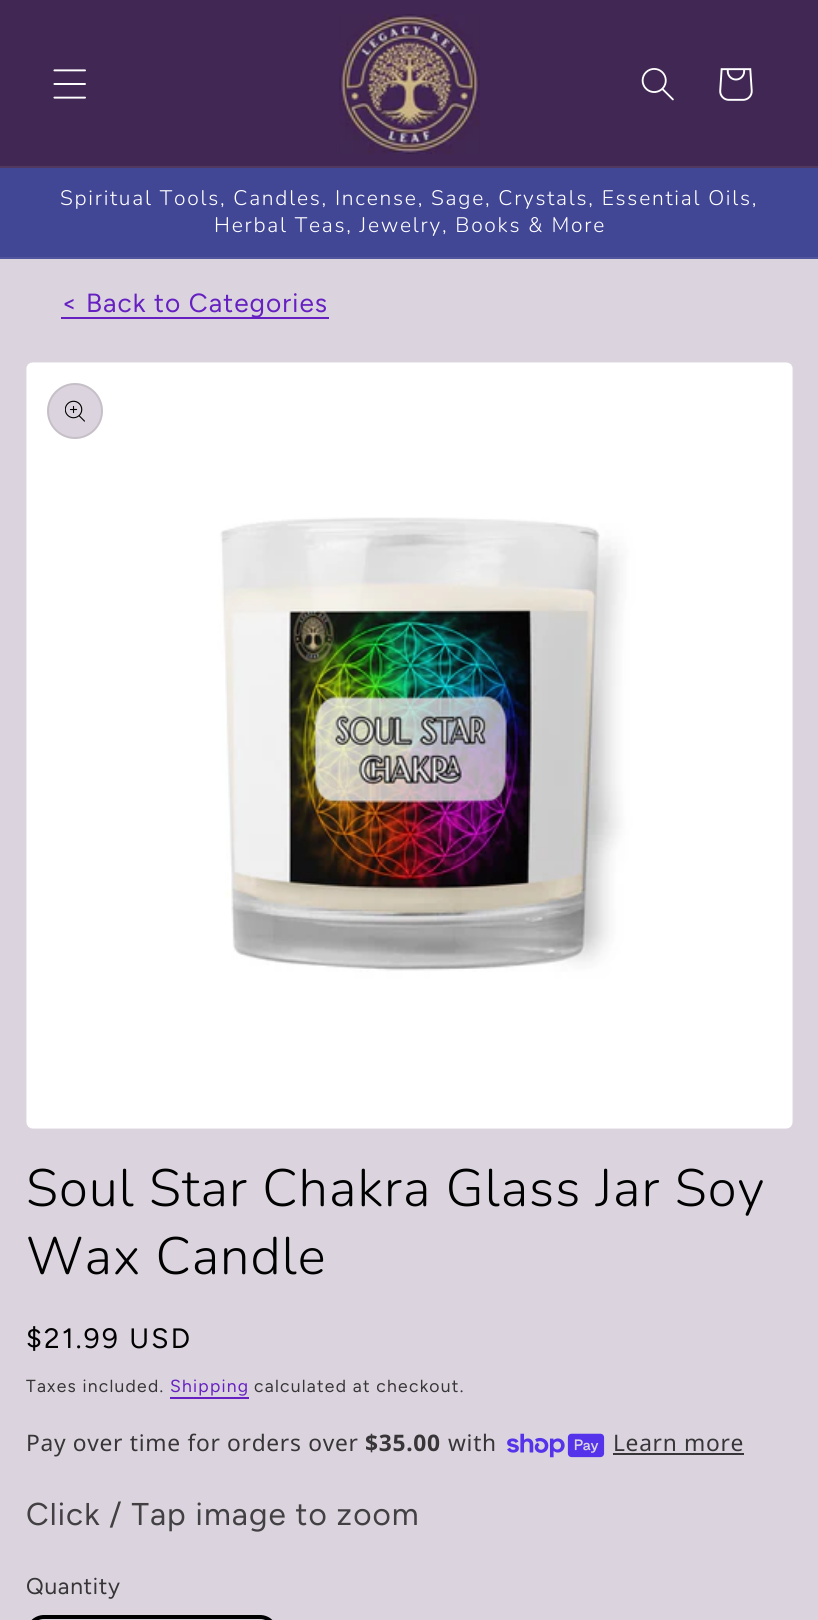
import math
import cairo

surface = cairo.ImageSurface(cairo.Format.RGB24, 818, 1620)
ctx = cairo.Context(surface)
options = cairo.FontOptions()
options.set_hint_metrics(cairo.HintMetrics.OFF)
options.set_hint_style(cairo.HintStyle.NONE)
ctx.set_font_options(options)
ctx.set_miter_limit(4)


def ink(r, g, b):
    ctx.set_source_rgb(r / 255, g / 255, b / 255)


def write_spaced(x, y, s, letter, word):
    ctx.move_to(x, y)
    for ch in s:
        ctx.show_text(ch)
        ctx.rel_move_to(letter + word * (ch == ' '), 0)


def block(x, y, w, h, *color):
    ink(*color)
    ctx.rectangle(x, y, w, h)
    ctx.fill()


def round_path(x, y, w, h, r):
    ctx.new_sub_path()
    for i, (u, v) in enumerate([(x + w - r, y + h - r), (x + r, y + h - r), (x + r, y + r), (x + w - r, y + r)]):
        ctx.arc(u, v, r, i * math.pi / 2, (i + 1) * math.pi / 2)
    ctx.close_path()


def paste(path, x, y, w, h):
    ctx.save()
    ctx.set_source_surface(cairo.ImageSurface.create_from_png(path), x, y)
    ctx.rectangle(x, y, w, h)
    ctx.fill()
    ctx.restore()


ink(219, 212, 222)
ctx.paint()
block(0, 0, 818, 166, 65, 39, 83)
block(0, 166, 818, 2, 80, 56, 97)
paste("pic1.png", 53, 69, 33, 30)
paste("pic2.png", 339, 14, 141, 140)
paste("pic3.png", 641, 68, 33, 33)
paste("pic4.png", 719, 68, 34, 33)
block(0, 168, 818, 89, 65, 70, 149)
block(0, 257, 818, 2, 80, 85, 157)
ctx.select_font_face("Nunito Light")
ctx.set_font_size(21)
ink(255, 255, 255)
write_spaced(60, 205, "Spiritual Tools, Candles, Incense, Sage, Crystals, Essential Oils,", 1.75, 0)
write_spaced(214, 232, "Herbal Teas, Jewelry, Books & More", 1.75, 0)
block(61, 317, 268, 2, 102, 32, 193)
ctx.select_font_face("Figtree")
ctx.set_font_size(26.25)
write_spaced(61, 312, "< Back to Categories", 1.05, 0)
paste("pic5.png", 26, 362, 767, 767)
ink(219, 212, 222)
ctx.arc(75, 411, 28, 0, 2 * math.pi)
ctx.fill()
ctx.arc(75, 411, 27, 0, 2 * math.pi)
ctx.set_source_rgba(0, 0, 0, 0.1)
ctx.stroke()
paste("pic6.png", 65, 400, 20, 22)
ctx.select_font_face("Nunito Light")
ctx.set_font_size(52.5)
ink(0, 0, 0)
write_spaced(26, 1206, "Soul Star Chakra Glass Jar Soy", 1.05, 0)
write_spaced(26, 1274, "Wax Candle", 1.05, 0)
ctx.select_font_face("Figtree")
ctx.set_font_size(28)
write_spaced(26, 1348, "$21.99 USD", 2.25, 0)
ctx.set_font_size(17.5)
ink(55, 53, 56)
write_spaced(26, 1392, "Taxes included.", 1.25, 0)
ink(102, 32, 193)
write_spaced(170, 1392, "Shipping", 1.25, 0)
block(170, 1397, 79, 2, 102, 32, 193)
ink(55, 53, 56)
write_spaced(254, 1392, "calculated at checkout.", 1.25, 0)
ctx.select_font_face("Noto Sans")
ctx.set_font_size(22.75)
write_spaced(26, 1451, "Pay over time for orders over", 0.7, 0)
ctx.select_font_face("Noto Sans", cairo.FontSlant.NORMAL, cairo.FontWeight.BOLD)
write_spaced(365, 1451, "$35.00", 0.7, 0)
ctx.select_font_face("Noto Sans")
write_spaced(448, 1451, "with", 0.7, 0)
paste("pic7.png", 507, 1433, 98, 25)
write_spaced(613, 1451, "Learn more", 0.7, 0)
block(613, 1453, 131, 2, 55, 53, 56)
ctx.select_font_face("Figtree")
ctx.set_font_size(31.5)
ink(66, 64, 67)
write_spaced(26, 1525, "Click / Tap image to zoom", 1.05, 0)
ctx.set_font_size(22.75)
ink(55, 53, 56)
write_spaced(26, 1594, "Quantity", 0.7, 0)
round_path(28, 1617, 248, 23, 16)
ink(0, 0, 0)
ctx.set_line_width(4)
ctx.stroke()
surface.write_to_png("screenshot.png")
